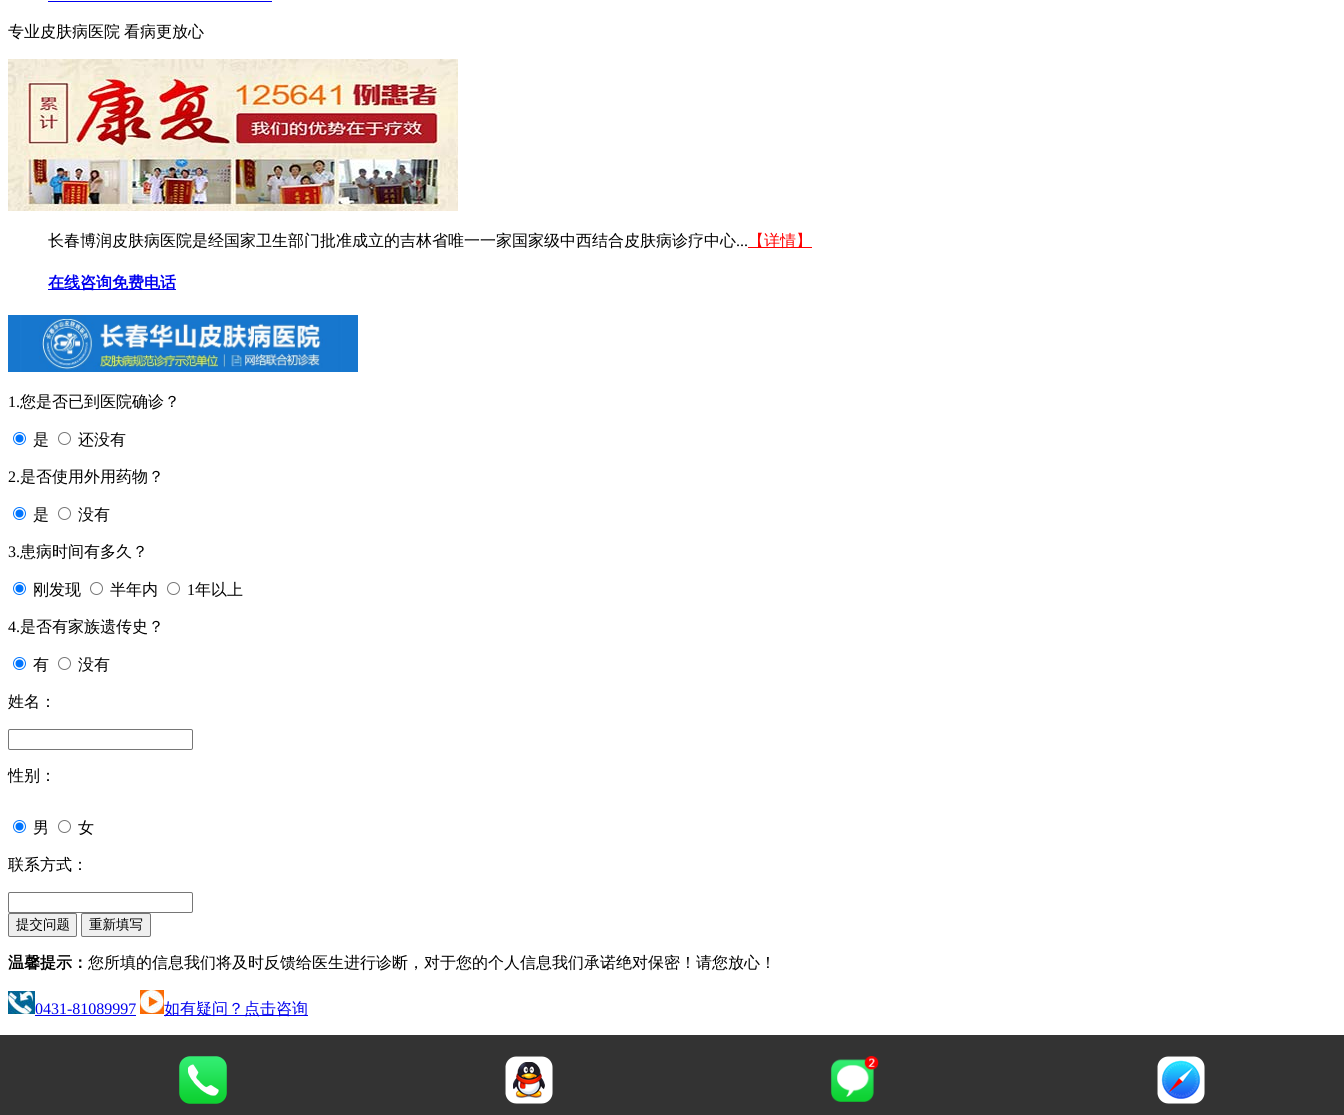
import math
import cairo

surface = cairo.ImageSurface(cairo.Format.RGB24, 1344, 1115)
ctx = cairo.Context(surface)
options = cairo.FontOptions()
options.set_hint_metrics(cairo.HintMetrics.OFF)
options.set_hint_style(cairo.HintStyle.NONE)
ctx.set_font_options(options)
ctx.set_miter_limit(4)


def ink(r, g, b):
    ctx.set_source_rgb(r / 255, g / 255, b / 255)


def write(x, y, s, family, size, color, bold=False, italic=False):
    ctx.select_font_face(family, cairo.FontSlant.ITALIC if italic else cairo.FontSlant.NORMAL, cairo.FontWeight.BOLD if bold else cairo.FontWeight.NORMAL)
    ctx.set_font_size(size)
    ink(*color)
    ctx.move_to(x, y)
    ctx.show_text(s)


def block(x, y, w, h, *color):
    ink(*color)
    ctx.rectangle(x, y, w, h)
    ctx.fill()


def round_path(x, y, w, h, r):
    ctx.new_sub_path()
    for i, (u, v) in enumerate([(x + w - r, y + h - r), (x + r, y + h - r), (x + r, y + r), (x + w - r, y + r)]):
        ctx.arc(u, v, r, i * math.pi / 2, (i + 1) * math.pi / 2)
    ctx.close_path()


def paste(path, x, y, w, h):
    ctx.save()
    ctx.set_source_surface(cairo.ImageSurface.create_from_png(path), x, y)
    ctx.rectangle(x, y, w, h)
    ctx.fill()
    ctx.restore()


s1 = dict(family="WenQuanYi Zen Hei Medium", size=16, color=(0, 0, 0))
s2 = dict(family="Liberation Serif", size=16, color=(0, 0, 0))
s3 = dict(family="WenQuanYi Zen Hei Medium", size=16, color=(255, 0, 0))
s4 = dict(family="WenQuanYi Zen Hei", size=16, color=(0, 0, 238), bold=True)
s5 = dict(family="WenQuanYi Zen Hei Medium", size=13.5, color=(0, 0, 0))
s6 = dict(family="WenQuanYi Zen Hei", size=16, color=(0, 0, 0), bold=True)
s7 = dict(family="Liberation Serif", size=16, color=(0, 0, 238))
s8 = dict(family="WenQuanYi Zen Hei Medium", size=16, color=(0, 0, 238))

ink(255, 255, 255)
ctx.paint()
block(48, 1, 224, 1, 0, 0, 238)
write(8, 37, "专业皮肤病医院", **s1)
write(124, 37, "看病更放心", **s1)
paste("pic1.png", 8, 59, 450, 152)
write(48, 246, "长春博润皮肤病医院是经国家卫生部门批准成立的吉林省唯一一家国家级中西结合皮肤病诊疗中心", **s1)
write(736, 246, "...", **s2)
block(748, 247, 64, 1, 255, 0, 0)
write(748, 246, "【详情】", **s3)
block(48, 289, 128, 1, 0, 0, 238)
write(48, 288, "在线咨询免费电话", **s4)
paste("pic2.png", 8, 315, 350, 57)
write(8, 407, "1.", **s2)
write(20, 407, "您是否已到医院确诊？", **s1)
ctx.new_path()
ctx.arc(19.5, 438.5, 6, 0, 2 * math.pi)
ink(0, 117, 255)
ctx.set_line_width(1)
ctx.stroke()
ctx.arc(19.5, 438.5, 4, 0, 2 * math.pi)
ctx.fill()
write(33, 445, "是", **s1)
ctx.new_path()
ctx.arc(64.5, 438.5, 6, 0, 2 * math.pi)
ink(118, 118, 118)
ctx.stroke()
write(78, 445, "还没有", **s1)
write(8, 482, "2.", **s2)
write(20, 482, "是否使用外用药物？", **s1)
ctx.new_path()
ctx.arc(19.5, 513.5, 6, 0, 2 * math.pi)
ink(0, 117, 255)
ctx.stroke()
ctx.arc(19.5, 513.5, 4, 0, 2 * math.pi)
ctx.fill()
write(33, 520, "是", **s1)
ctx.new_path()
ctx.arc(64.5, 513.5, 6, 0, 2 * math.pi)
ink(118, 118, 118)
ctx.stroke()
write(78, 520, "没有", **s1)
write(8, 557, "3.", **s2)
write(20, 557, "患病时间有多久？", **s1)
ctx.new_path()
ctx.arc(19.5, 588.5, 6, 0, 2 * math.pi)
ink(0, 117, 255)
ctx.stroke()
ctx.arc(19.5, 588.5, 4, 0, 2 * math.pi)
ctx.fill()
write(33, 595, "刚发现", **s1)
ctx.new_path()
ctx.arc(96.5, 588.5, 6, 0, 2 * math.pi)
ink(118, 118, 118)
ctx.stroke()
write(110, 595, "半年内", **s1)
ctx.new_path()
ctx.arc(173.5, 588.5, 6, 0, 2 * math.pi)
ink(118, 118, 118)
ctx.stroke()
write(187, 595, "1", **s2)
write(195, 595, "年以上", **s1)
write(8, 632, "4.", **s2)
write(20, 632, "是否有家族遗传史？", **s1)
ctx.new_path()
ctx.arc(19.5, 663.5, 6, 0, 2 * math.pi)
ink(0, 117, 255)
ctx.stroke()
ctx.arc(19.5, 663.5, 4, 0, 2 * math.pi)
ctx.fill()
write(33, 670, "有", **s1)
ctx.new_path()
ctx.arc(64.5, 663.5, 6, 0, 2 * math.pi)
ink(118, 118, 118)
ctx.stroke()
write(78, 670, "没有", **s1)
write(8, 707, "姓名：", **s1)
round_path(8.5, 729.5, 184, 20, 1.5)
ink(118, 118, 118)
ctx.stroke()
write(8, 781, "性别：", **s1)
ctx.new_path()
ctx.arc(19.5, 826.5, 6, 0, 2 * math.pi)
ink(0, 117, 255)
ctx.stroke()
ctx.arc(19.5, 826.5, 4, 0, 2 * math.pi)
ctx.fill()
write(33, 833, "男", **s1)
ctx.new_path()
ctx.arc(64.5, 826.5, 6, 0, 2 * math.pi)
ink(118, 118, 118)
ctx.stroke()
write(78, 833, "女", **s1)
write(8, 870, "联系方式：", **s1)
round_path(8.5, 892.5, 184, 20, 1.5)
ink(118, 118, 118)
ctx.stroke()
ink(239, 239, 239)
round_path(8.5, 913.5, 68, 23, 1.5)
ctx.fill_preserve()
ink(118, 118, 118)
ctx.stroke()
write(16, 929, "提交问题", **s5)
ink(239, 239, 239)
round_path(81.5, 913.5, 69, 23, 1.5)
ctx.fill_preserve()
ink(118, 118, 118)
ctx.stroke()
write(89, 929, "重新填写", **s5)
write(8, 968, "温馨提示：", **s6)
write(88, 968, "您所填的信息我们将及时反馈给医生进行诊断，对于您的个人信息我们承诺绝对保密！请您放心！", **s1)
paste("pic3.png", 8, 991, 27, 23)
write(35, 1014, "0431-81089997", **s7)
block(35, 1015, 101, 1, 0, 0, 238)
paste("pic4.png", 140, 990, 24, 24)
block(164, 1015, 144, 1, 0, 0, 238)
write(164, 1014, "如有疑问？点击咨询", **s8)
block(0, 1035, 1344, 80, 51, 51, 51)
paste("pic5.png", 179, 1056, 48, 48)
paste("pic6.png", 505, 1056, 48, 48)
paste("pic7.png", 831, 1056, 48, 46)
paste("pic8.png", 1157, 1056, 48, 48)
surface.write_to_png("screenshot.png")
